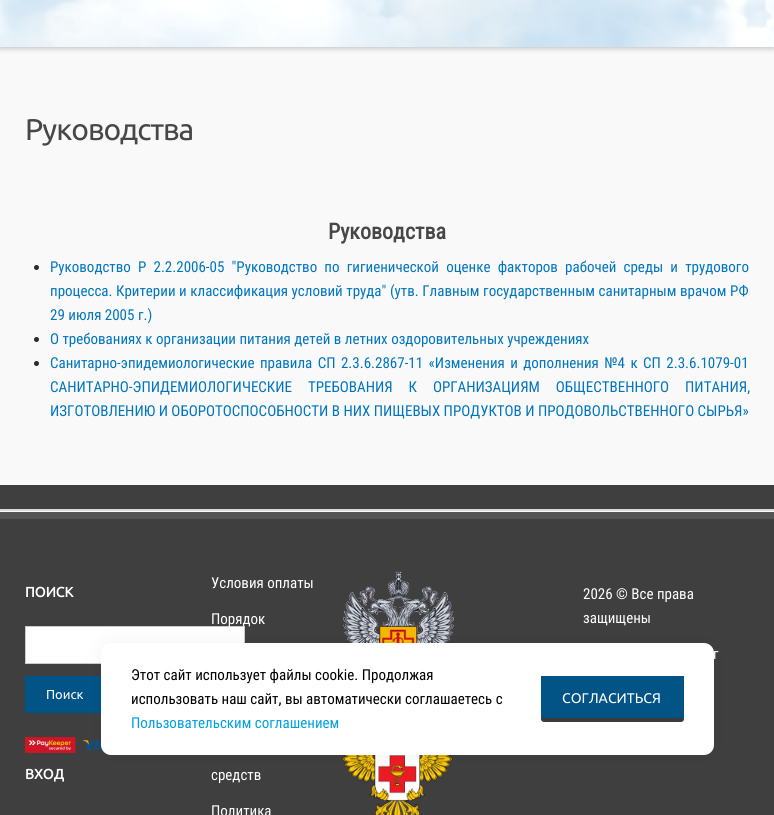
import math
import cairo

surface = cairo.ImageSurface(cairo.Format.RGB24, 774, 815)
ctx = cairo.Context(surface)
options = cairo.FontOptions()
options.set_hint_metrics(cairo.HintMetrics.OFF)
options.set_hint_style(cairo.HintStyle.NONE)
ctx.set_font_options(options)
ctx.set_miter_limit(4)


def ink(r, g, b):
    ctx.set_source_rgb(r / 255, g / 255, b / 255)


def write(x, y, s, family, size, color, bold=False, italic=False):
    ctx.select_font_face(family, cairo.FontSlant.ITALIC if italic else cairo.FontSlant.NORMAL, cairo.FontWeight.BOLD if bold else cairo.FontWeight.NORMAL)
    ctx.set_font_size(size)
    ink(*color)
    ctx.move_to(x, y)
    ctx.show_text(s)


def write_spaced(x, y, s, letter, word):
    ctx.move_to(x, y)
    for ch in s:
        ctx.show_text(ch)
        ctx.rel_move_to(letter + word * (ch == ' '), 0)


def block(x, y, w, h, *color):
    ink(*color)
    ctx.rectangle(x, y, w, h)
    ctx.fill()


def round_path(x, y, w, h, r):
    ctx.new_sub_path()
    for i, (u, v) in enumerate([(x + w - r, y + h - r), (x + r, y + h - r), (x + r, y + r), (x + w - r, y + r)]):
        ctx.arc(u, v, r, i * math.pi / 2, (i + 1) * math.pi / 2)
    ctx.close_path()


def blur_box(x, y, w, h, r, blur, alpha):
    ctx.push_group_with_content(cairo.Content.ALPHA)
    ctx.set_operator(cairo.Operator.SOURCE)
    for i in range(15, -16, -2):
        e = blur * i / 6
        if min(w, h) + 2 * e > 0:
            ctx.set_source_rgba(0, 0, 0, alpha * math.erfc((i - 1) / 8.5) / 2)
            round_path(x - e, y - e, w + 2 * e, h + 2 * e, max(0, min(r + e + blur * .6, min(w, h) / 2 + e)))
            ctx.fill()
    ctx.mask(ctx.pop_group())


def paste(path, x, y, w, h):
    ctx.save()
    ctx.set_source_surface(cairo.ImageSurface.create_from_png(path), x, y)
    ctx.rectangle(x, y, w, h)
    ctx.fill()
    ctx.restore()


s1 = dict(family="Roboto Condensed", size=22, color=(71, 71, 71), bold=True)
s2 = dict(family="Roboto Condensed", size=15, color=(1, 117, 190))
s3 = dict(family="Ubuntu", size=14, color=(255, 255, 255), bold=True)
s4 = dict(family="Ubuntu", size=13, color=(255, 255, 255))
s5 = dict(family="Roboto Condensed", size=15, color=(255, 255, 255))
s6 = dict(family="Roboto Condensed", size=15, color=(0, 0, 0))
s7 = dict(family="Roboto Condensed", size=15, color=(1, 160, 226))
s8 = dict(family="Ubuntu", size=14, color=(255, 255, 255))

ink(63, 63, 63)
ctx.paint()
block(0, 47, 774, 438, 249, 249, 249)
ink(0, 1, 0)
blur_box(0, -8, 774, 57, 0, 2.5, 0.2)
paste("pic1.png", 0, 0, 774, 47)
ctx.select_font_face("Ubuntu")
ctx.set_font_size(30)
ink(71, 71, 71)
write_spaced(25, 140, "Руководства", -1, 0)
write(328, 239, "Руководства", **s1)
ink(43, 42, 42)
ctx.new_path()
ctx.arc(36.5, 267.5, 2.5, 0, 2 * math.pi)
ctx.fill()
ctx.select_font_face("Roboto Condensed")
ctx.set_font_size(15)
ink(1, 117, 190)
write_spaced(50, 272, "Руководство Р 2.2.2006-05 \"Руководство по гигиенической оценке факторов рабочей среды и трудового", 0, 3.75)
write_spaced(50, 296, "процесса. Критерии и классификация условий труда\" (утв. Главным государственным санитарным врачом РФ", 0, 0.1)
write(50, 320, "29 июля 2005 г.)", **s2)
ink(43, 42, 42)
ctx.new_path()
ctx.arc(36.5, 339.5, 2.5, 0, 2 * math.pi)
ctx.fill()
write(50, 344, "О требованиях к организации питания детей в летних оздоровительных учреждениях", **s2)
ink(43, 42, 42)
ctx.new_path()
ctx.arc(36.5, 363.5, 2.5, 0, 2 * math.pi)
ctx.fill()
ink(1, 117, 190)
write_spaced(50, 368, "Санитарно-эпидемиологические правила СП 2.3.6.2867-11 «Изменения и дополнения №4 к СП 2.3.6.1079-01", 0, 2)
write_spaced(50, 392, "САНИТАРНО-ЭПИДЕМИОЛОГИЧЕСКИЕ ТРЕБОВАНИЯ К ОРГАНИЗАЦИЯМ ОБЩЕСТВЕННОГО ПИТАНИЯ,", 0, 12.5)
write(50, 416, "ИЗГОТОВЛЕНИЮ И ОБОРОТОСПОСОБНОСТИ В НИХ ПИЩЕВЫХ ПРОДУКТОВ И ПРОДОВОЛЬСТВЕННОГО СЫРЬЯ»", **s2)
paste("pic2.png", 0, 510, 774, 9)
block(0, 509, 774, 1, 217, 217, 217)
write(25, 597, "ПОИСК", **s3)
ctx.rectangle(25.5, 626.5, 219, 37)
ctx.fill_preserve()
ink(204, 204, 204)
ctx.set_line_width(1)
ctx.stroke()
block(25, 676, 76, 37, 2, 84, 135)
write(46, 699, "Поиск", **s4)
paste("pic3.png", 25, 737, 78, 16)
write(25, 779, "ВХОД", **s3)
write(211, 588, "Условия оплаты", **s5)
write(211, 624, "Порядок", **s5)
write(211, 780, "средств", **s5)
write(211, 816, "Политика", **s5)
paste("pic4.png", 343, 571, 111, 72)
paste("pic5.png", 341, 755, 112, 60)
write(583, 599, "2026 © Все права", **s5)
write(583, 623, "защищены", **s5)
write(713, 659, "г", **s5)
ink(0, 0, 0)
blur_box(101, 643, 613, 112, 10, 10, 0.05)
ink(255, 255, 255)
round_path(101, 643, 613, 112, 10)
ctx.fill()
write(131, 680, "Этот сайт использует файлы cookie. Продолжая", **s6)
write(131, 704, "использовать наш сайт, вы автоматически соглашаетесь с", **s6)
write(131, 728, "Пользовательским соглашением", **s7)
ink(58, 58, 58)
round_path(541, 676, 143, 46, 3)
ctx.fill()
block(541, 676, 143, 42, 2, 84, 135)
write(562, 703, "СОГЛАСИТЬСЯ", **s8)
surface.write_to_png("screenshot.png")
